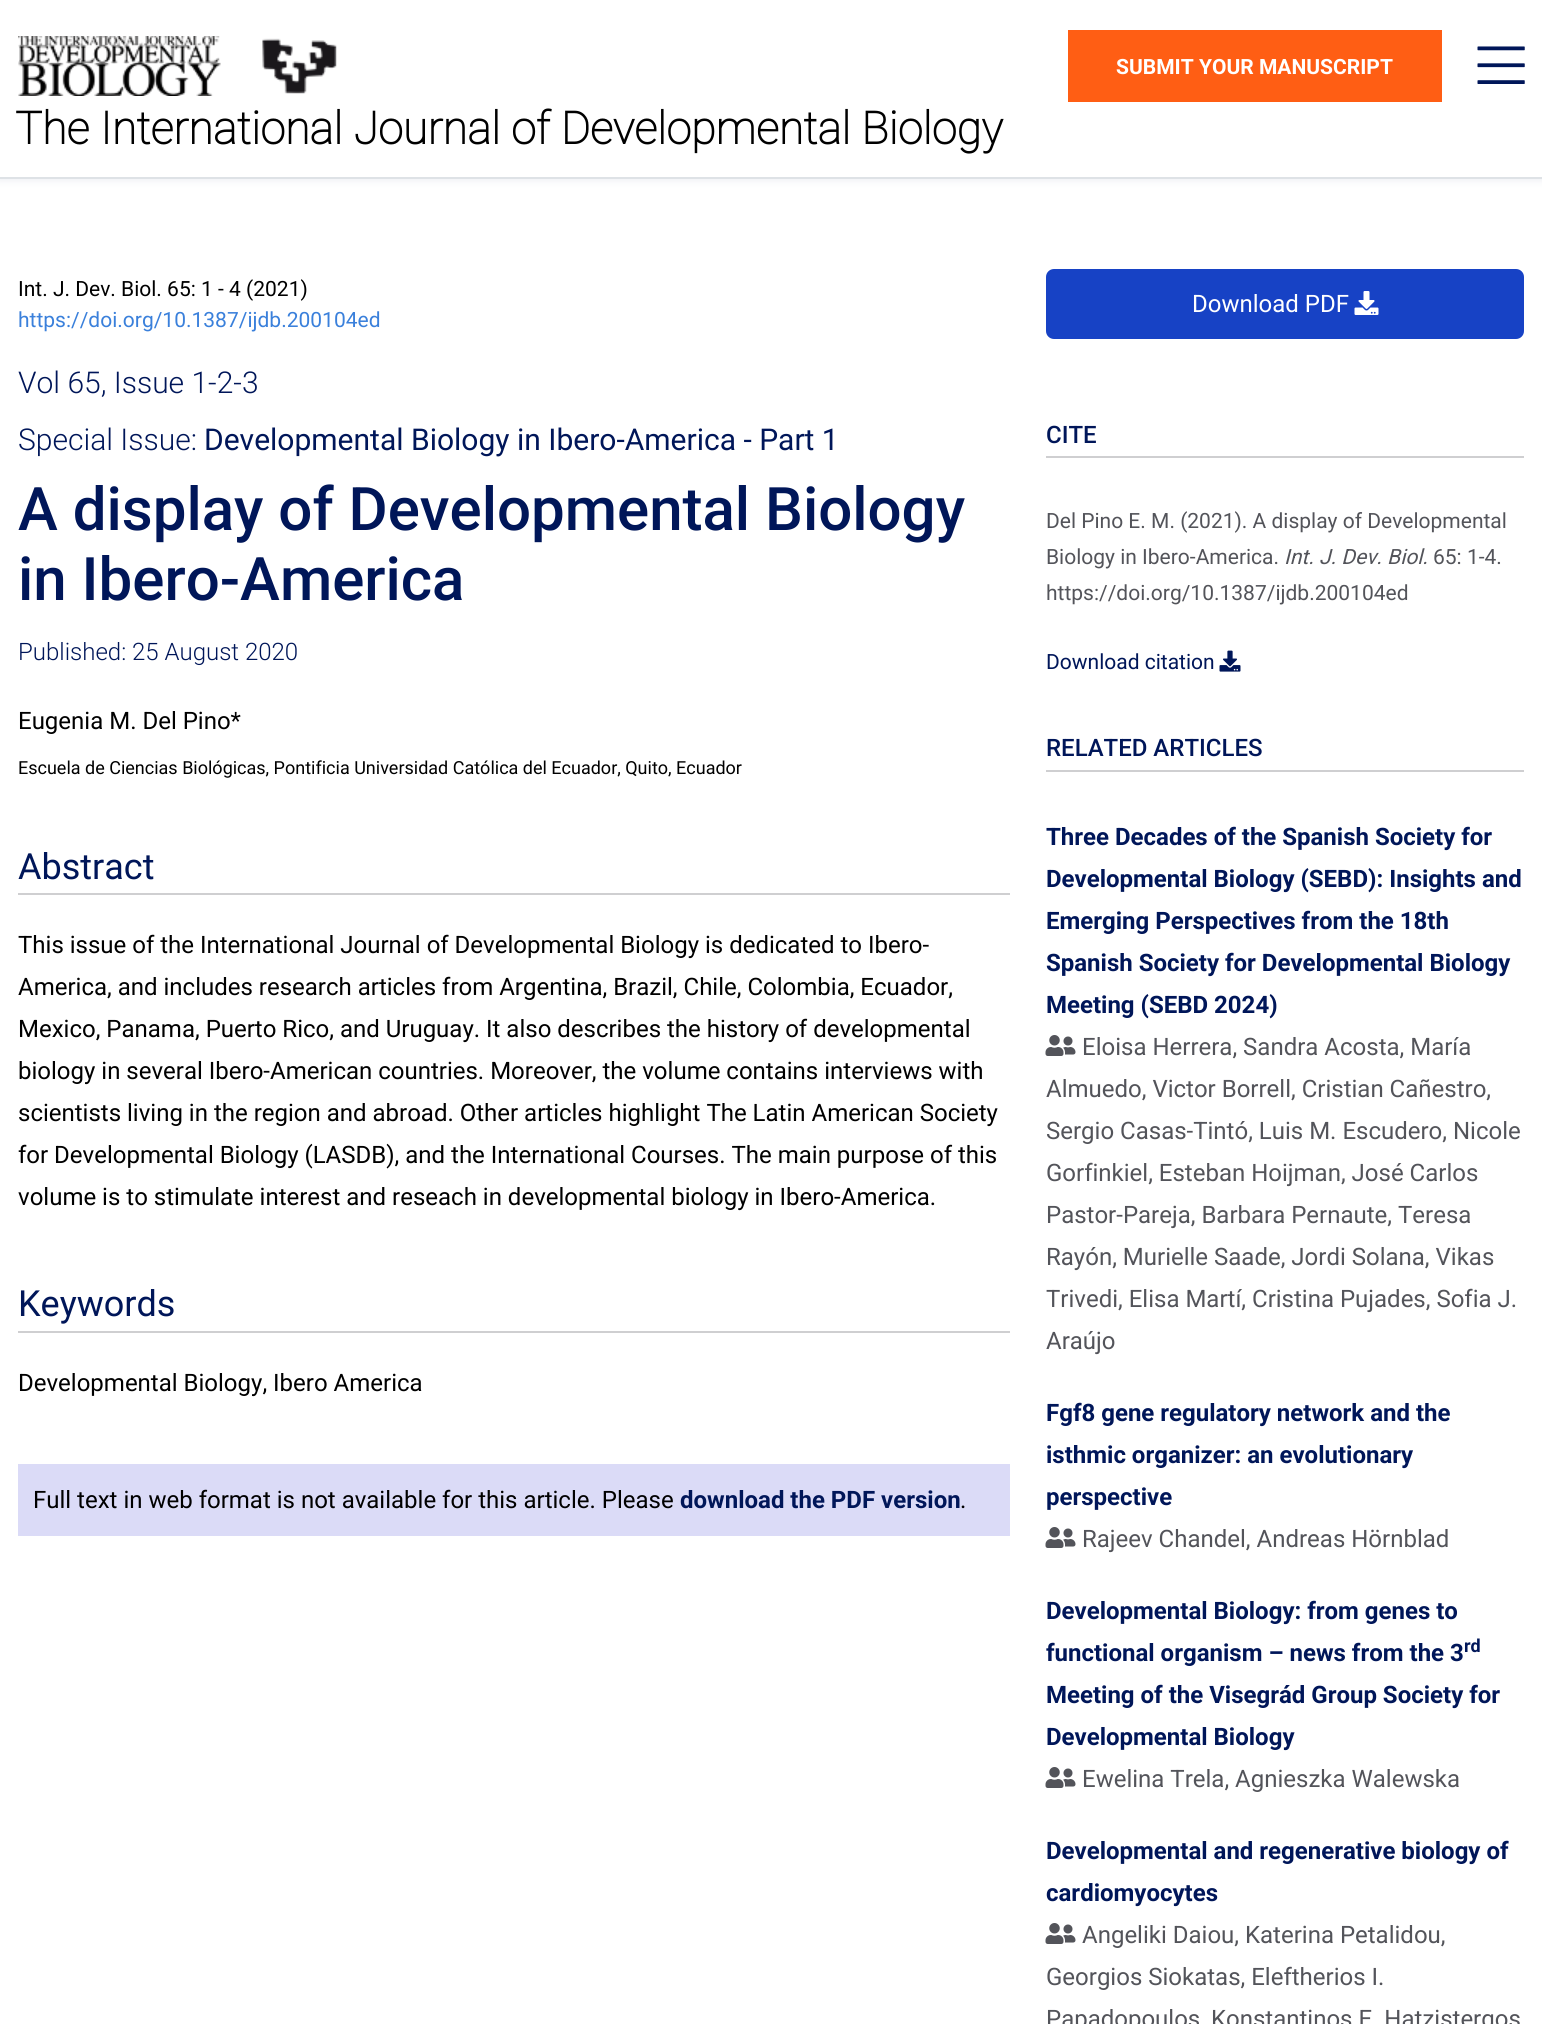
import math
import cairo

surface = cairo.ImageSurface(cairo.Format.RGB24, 1542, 2024)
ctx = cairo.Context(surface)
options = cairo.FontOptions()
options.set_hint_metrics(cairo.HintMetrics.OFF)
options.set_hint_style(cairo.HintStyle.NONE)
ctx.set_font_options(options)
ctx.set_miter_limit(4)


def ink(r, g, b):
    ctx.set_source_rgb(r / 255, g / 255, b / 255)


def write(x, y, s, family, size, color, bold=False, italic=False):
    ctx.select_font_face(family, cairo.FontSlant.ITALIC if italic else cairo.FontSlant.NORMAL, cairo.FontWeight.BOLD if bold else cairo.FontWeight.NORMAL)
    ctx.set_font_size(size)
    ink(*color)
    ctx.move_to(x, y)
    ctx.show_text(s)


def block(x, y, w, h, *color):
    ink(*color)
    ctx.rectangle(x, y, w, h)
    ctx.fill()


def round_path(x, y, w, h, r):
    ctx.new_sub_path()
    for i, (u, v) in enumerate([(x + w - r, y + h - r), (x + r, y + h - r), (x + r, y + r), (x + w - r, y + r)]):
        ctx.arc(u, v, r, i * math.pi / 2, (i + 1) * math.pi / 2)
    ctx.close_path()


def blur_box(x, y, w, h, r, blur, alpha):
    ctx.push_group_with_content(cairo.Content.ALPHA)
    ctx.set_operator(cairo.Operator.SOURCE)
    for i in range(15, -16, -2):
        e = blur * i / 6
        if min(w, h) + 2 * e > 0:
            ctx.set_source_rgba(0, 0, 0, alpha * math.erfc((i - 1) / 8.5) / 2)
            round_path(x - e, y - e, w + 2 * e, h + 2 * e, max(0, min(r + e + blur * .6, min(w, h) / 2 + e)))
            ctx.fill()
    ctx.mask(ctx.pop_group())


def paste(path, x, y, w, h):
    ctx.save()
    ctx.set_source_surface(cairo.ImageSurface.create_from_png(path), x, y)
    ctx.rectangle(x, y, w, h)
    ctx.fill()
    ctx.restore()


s1 = dict(family="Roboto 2", size=21, color=(255, 255, 255), bold=True)
s2 = dict(family="Roboto", size=45, color=(0, 0, 0), bold=True)
s3 = dict(family="Roboto", size=21, color=(0, 0, 0))
s4 = dict(family="Roboto", size=21, color=(58, 128, 219))
s5 = dict(family="Roboto Light", size=30, color=(0, 22, 89))
s6 = dict(family="Roboto", size=30, color=(0, 22, 89))
s7 = dict(family="Roboto Medium", size=60, color=(0, 22, 89))
s8 = dict(family="Roboto Light", size=24, color=(0, 22, 89))
s9 = dict(family="Roboto", size=24, color=(0, 0, 0))
s10 = dict(family="Roboto", size=18, color=(0, 0, 0))
s11 = dict(family="Roboto", size=36, color=(0, 22, 89))
s12 = dict(family="Roboto 2", size=24, color=(0, 22, 89), bold=True)
s13 = dict(family="Roboto", size=24, color=(255, 255, 255))
s14 = dict(family="Roboto Medium", size=24, color=(0, 22, 89))
s15 = dict(family="Roboto", size=21, color=(83, 84, 90))
s16 = dict(family="Roboto", size=21, color=(83, 84, 90), italic=True)
s17 = dict(family="Roboto", size=21, color=(0, 22, 89))
s18 = dict(family="Roboto", size=24, color=(83, 84, 90))
s19 = dict(family="Roboto 2", size=18, color=(0, 22, 89), bold=True)

ink(255, 255, 255)
ctx.paint()
ink(235, 237, 242)
blur_box(-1, -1, 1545, 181, 0, 4, 1)
block(0, 0, 1542, 177, 255, 255, 255)
block(0, 177, 1542, 2, 222, 226, 230)
paste("pic1.png", 18, 36, 203, 60)
paste("pic2.png", 262, 38, 75, 56)
block(1068, 30, 374, 72, 255, 94, 20)
write(1116, 74, "SUBMIT YOUR MANUSCRIPT", **s1)
paste("pic3.png", 1477, 46, 48, 38)
write(15, 144, "The International Journal of Developmental Biology", **s2)
write(18, 296, "Int. J. Dev. Biol. 65: 1 - 4 (2021)", **s3)
write(18, 327, "https://doi.org/10.1387/ijdb.200104ed", **s4)
write(18, 393, "Vol 65, Issue 1-2-3", **s5)
write(18, 450, "Special Issue:", **s5)
write(204, 450, "Developmental Biology in Ibero-America - Part 1", **s6)
write(18, 530, "A display of Developmental Biology", **s7)
write(18, 600, "in Ibero-America", **s7)
write(18, 660, "Published: 25 August 2020", **s8)
write(18, 729, "Eugenia M. Del Pino*", **s9)
write(18, 774, "Escuela de Ciencias Biológicas, Pontificia Universidad Católica del Ecuador, Quito, Ecuador", **s10)
block(18, 893, 992, 2, 207, 207, 209)
write(18, 879, "Abstract", **s11)
write(18, 953, "This issue of the International Journal of Developmental Biology is dedicated to Ibero-", **s9)
write(18, 995, "America, and includes research articles from Argentina, Brazil, Chile, Colombia, Ecuador,", **s9)
write(18, 1037, "Mexico, Panama, Puerto Rico, and Uruguay. It also describes the history of developmental", **s9)
write(18, 1079, "biology in several Ibero-American countries. Moreover, the volume contains interviews with", **s9)
write(18, 1121, "scientists living in the region and abroad. Other articles highlight The Latin American Society", **s9)
write(18, 1163, "for Developmental Biology (LASDB), and the International Courses. The main purpose of this", **s9)
write(18, 1205, "volume is to stimulate interest and reseach in developmental biology in Ibero-America.", **s9)
block(18, 1331, 992, 2, 207, 207, 209)
write(18, 1316, "Keywords", **s11)
write(18, 1391, "Developmental Biology, Ibero America", **s9)
block(18, 1464, 992, 72, 219, 219, 247)
write(33, 1508, "Full text in web format is not available for this article. Please", **s9)
write(680, 1508, "download the PDF version", **s12)
write(960, 1508, ".", **s9)
ink(23, 66, 197)
round_path(1046, 269, 478, 70, 8)
ctx.fill()
write(1192, 312, "Download PDF", **s13)
paste("pic4.png", 1354, 291, 25, 24)
block(1046, 456, 478, 2, 207, 207, 209)
write(1046, 443, "CITE", **s14)
write(1046, 528, "Del Pino E. M. (2021). A display of Developmental", **s15)
write(1046, 564, "Biology in Ibero-America.", **s15)
write(1284, 564, "Int. J. Dev. Biol.", **s16)
write(1433, 564, "65: 1-4.", **s15)
write(1046, 600, "https://doi.org/10.1387/ijdb.200104ed", **s15)
write(1046, 669, "Download citation", **s17)
paste("pic5.png", 1219, 650, 22, 22)
block(1046, 770, 478, 2, 207, 207, 209)
write(1046, 756, "RELATED ARTICLES", **s14)
write(1046, 845, "Three Decades of the Spanish Society for", **s12)
write(1046, 887, "Developmental Biology (SEBD): Insights and", **s12)
write(1046, 929, "Emerging Perspectives from the 18th", **s12)
write(1046, 971, "Spanish Society for Developmental Biology", **s12)
write(1046, 1013, "Meeting (SEBD 2024)", **s12)
paste("pic6.png", 1045, 1035, 31, 21)
write(1082, 1055, "Eloisa Herrera, Sandra Acosta, María", **s18)
write(1046, 1097, "Almuedo, Victor Borrell, Cristian Cañestro,", **s18)
write(1046, 1139, "Sergio Casas-Tintó, Luis M. Escudero, Nicole", **s18)
write(1046, 1181, "Gorfinkiel, Esteban Hoijman, José Carlos", **s18)
write(1046, 1223, "Pastor-Pareja, Barbara Pernaute, Teresa", **s18)
write(1046, 1265, "Rayón, Murielle Saade, Jordi Solana, Vikas", **s18)
write(1046, 1307, "Trivedi, Elisa Martí, Cristina Pujades, Sofia J.", **s18)
write(1046, 1349, "Araújo", **s18)
write(1046, 1421, "Fgf8 gene regulatory network and the", **s12)
write(1046, 1463, "isthmic organizer: an evolutionary", **s12)
write(1046, 1505, "perspective", **s12)
paste("pic6.png", 1045, 1527, 31, 21)
write(1082, 1547, "Rajeev Chandel, Andreas Hörnblad", **s18)
write(1046, 1619, "Developmental Biology: from genes to", **s12)
write(1046, 1661, "functional organism – news from the 3", **s12)
write(1464, 1652, "rd", **s19)
write(1046, 1703, "Meeting of the Visegrád Group Society for", **s12)
write(1046, 1745, "Developmental Biology", **s12)
paste("pic6.png", 1045, 1767, 31, 21)
write(1082, 1787, "Ewelina Trela, Agnieszka Walewska", **s18)
write(1046, 1859, "Developmental and regenerative biology of", **s12)
write(1046, 1901, "cardiomyocytes", **s12)
paste("pic6.png", 1045, 1923, 31, 21)
write(1082, 1943, "Angeliki Daiou, Katerina Petalidou,", **s18)
write(1046, 1985, "Georgios Siokatas, Eleftherios I.", **s18)
write(1046, 2027, "Papadopoulos, Konstantinos E. Hatzistergos", **s18)
surface.write_to_png("screenshot.png")
